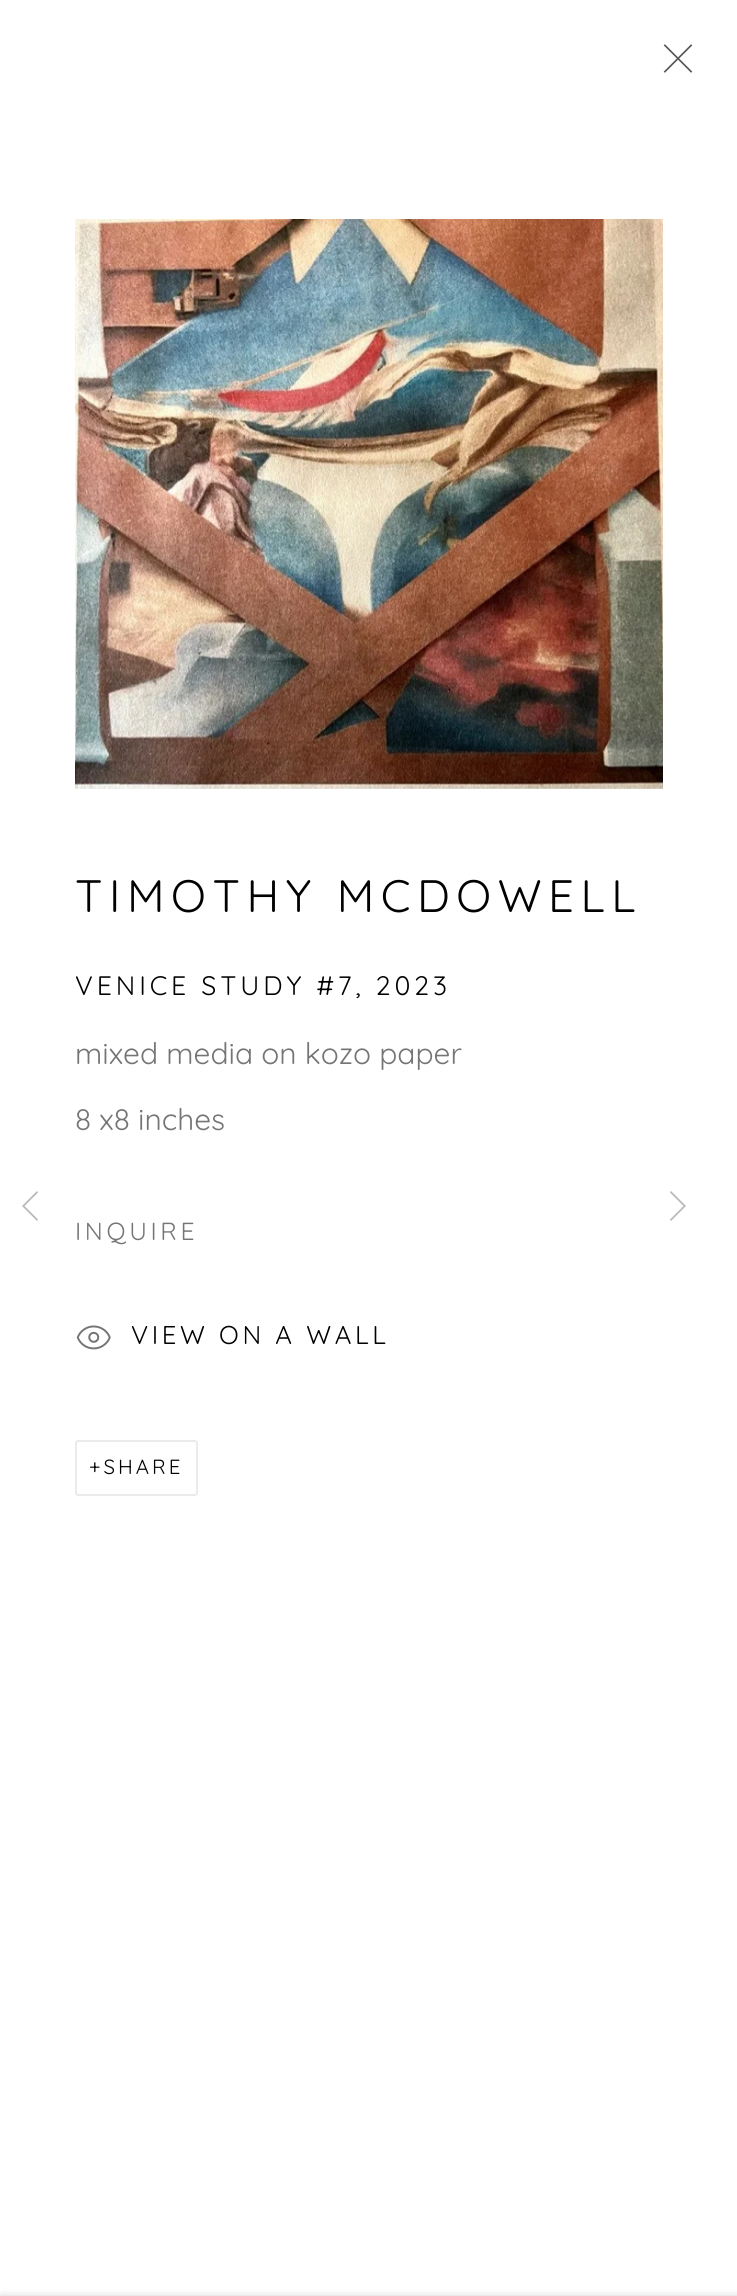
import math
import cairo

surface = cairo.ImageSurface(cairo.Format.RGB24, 737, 2296)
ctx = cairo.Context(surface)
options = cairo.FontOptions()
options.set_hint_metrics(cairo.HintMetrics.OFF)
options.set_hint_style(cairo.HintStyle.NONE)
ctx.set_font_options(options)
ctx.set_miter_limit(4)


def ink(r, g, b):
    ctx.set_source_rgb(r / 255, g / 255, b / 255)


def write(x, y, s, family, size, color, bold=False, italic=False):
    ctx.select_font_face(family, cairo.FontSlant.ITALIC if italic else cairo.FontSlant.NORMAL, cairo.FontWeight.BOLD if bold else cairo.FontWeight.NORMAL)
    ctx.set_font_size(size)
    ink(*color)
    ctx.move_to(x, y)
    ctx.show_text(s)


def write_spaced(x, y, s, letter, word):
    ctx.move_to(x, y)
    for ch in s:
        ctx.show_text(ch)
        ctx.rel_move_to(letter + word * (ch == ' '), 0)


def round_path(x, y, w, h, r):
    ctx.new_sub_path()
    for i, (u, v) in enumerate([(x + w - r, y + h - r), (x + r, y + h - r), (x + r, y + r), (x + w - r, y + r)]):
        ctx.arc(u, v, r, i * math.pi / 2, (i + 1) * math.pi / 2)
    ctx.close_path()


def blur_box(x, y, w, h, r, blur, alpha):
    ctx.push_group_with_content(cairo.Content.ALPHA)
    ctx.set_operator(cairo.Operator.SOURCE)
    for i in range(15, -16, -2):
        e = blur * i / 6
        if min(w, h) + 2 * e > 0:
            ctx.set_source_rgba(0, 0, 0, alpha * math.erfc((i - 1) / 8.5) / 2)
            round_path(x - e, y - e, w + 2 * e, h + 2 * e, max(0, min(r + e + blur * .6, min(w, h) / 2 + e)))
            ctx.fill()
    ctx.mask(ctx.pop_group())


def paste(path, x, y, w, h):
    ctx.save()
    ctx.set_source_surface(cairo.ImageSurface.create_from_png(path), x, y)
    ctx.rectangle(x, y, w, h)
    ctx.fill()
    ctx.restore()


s1 = dict(family="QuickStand", size=29.9, color=(117, 117, 117))

ink(255, 255, 255)
ctx.paint()
paste("pic1.png", 663, 44, 30, 29)
paste("pic2.png", 75, 219, 588, 570)
ctx.select_font_face("QuickStand")
ctx.set_font_size(45.4)
ink(1, 1, 1)
write_spaced(75, 912, "TIMOTHY MCDOWELL", 6.6, 0)
ctx.set_font_size(26.75)
write_spaced(75, 995, "VENICE STUDY #7, 2023", 3.9, 0)
write(75, 1064, "mixed media on kozo paper", **s1)
write(75, 1130, "8 x8 inches", **s1)
ctx.set_font_size(24.75)
write_spaced(75, 1240, "INQUIRE", 3.6, 0)
paste("pic3.png", 76, 1325, 35, 25)
ctx.set_font_size(25.75)
ink(1, 1, 1)
write_spaced(131, 1344, "VIEW ON A WALL", 3.6, 0)
round_path(76, 1441, 121, 54, 2)
ink(235, 235, 235)
ctx.stroke()
ctx.set_font_size(20.5)
ink(1, 1, 1)
write_spaced(89, 1474, "+SHARE", 3, 0)
ink(185, 185, 185)
ctx.new_path()
ctx.move_to(23, 1207)
ctx.line_to(37, 1221)
ctx.line_to(38, 1219.5)
ctx.line_to(24.5, 1206)
ctx.line_to(38, 1192.5)
ctx.line_to(37, 1191)
ctx.line_to(22, 1206)
ctx.close_path()
ctx.fill()
ctx.new_path()
ctx.move_to(686, 1206)
ctx.line_to(671, 1191)
ctx.line_to(670, 1192.5)
ctx.line_to(683.5, 1206)
ctx.line_to(670, 1219.5)
ctx.line_to(671, 1221)
ctx.close_path()
ctx.fill()
ink(0, 0, 0)
blur_box(0, 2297, 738, 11, 0, 4, 0.23)
surface.write_to_png("screenshot.png")
